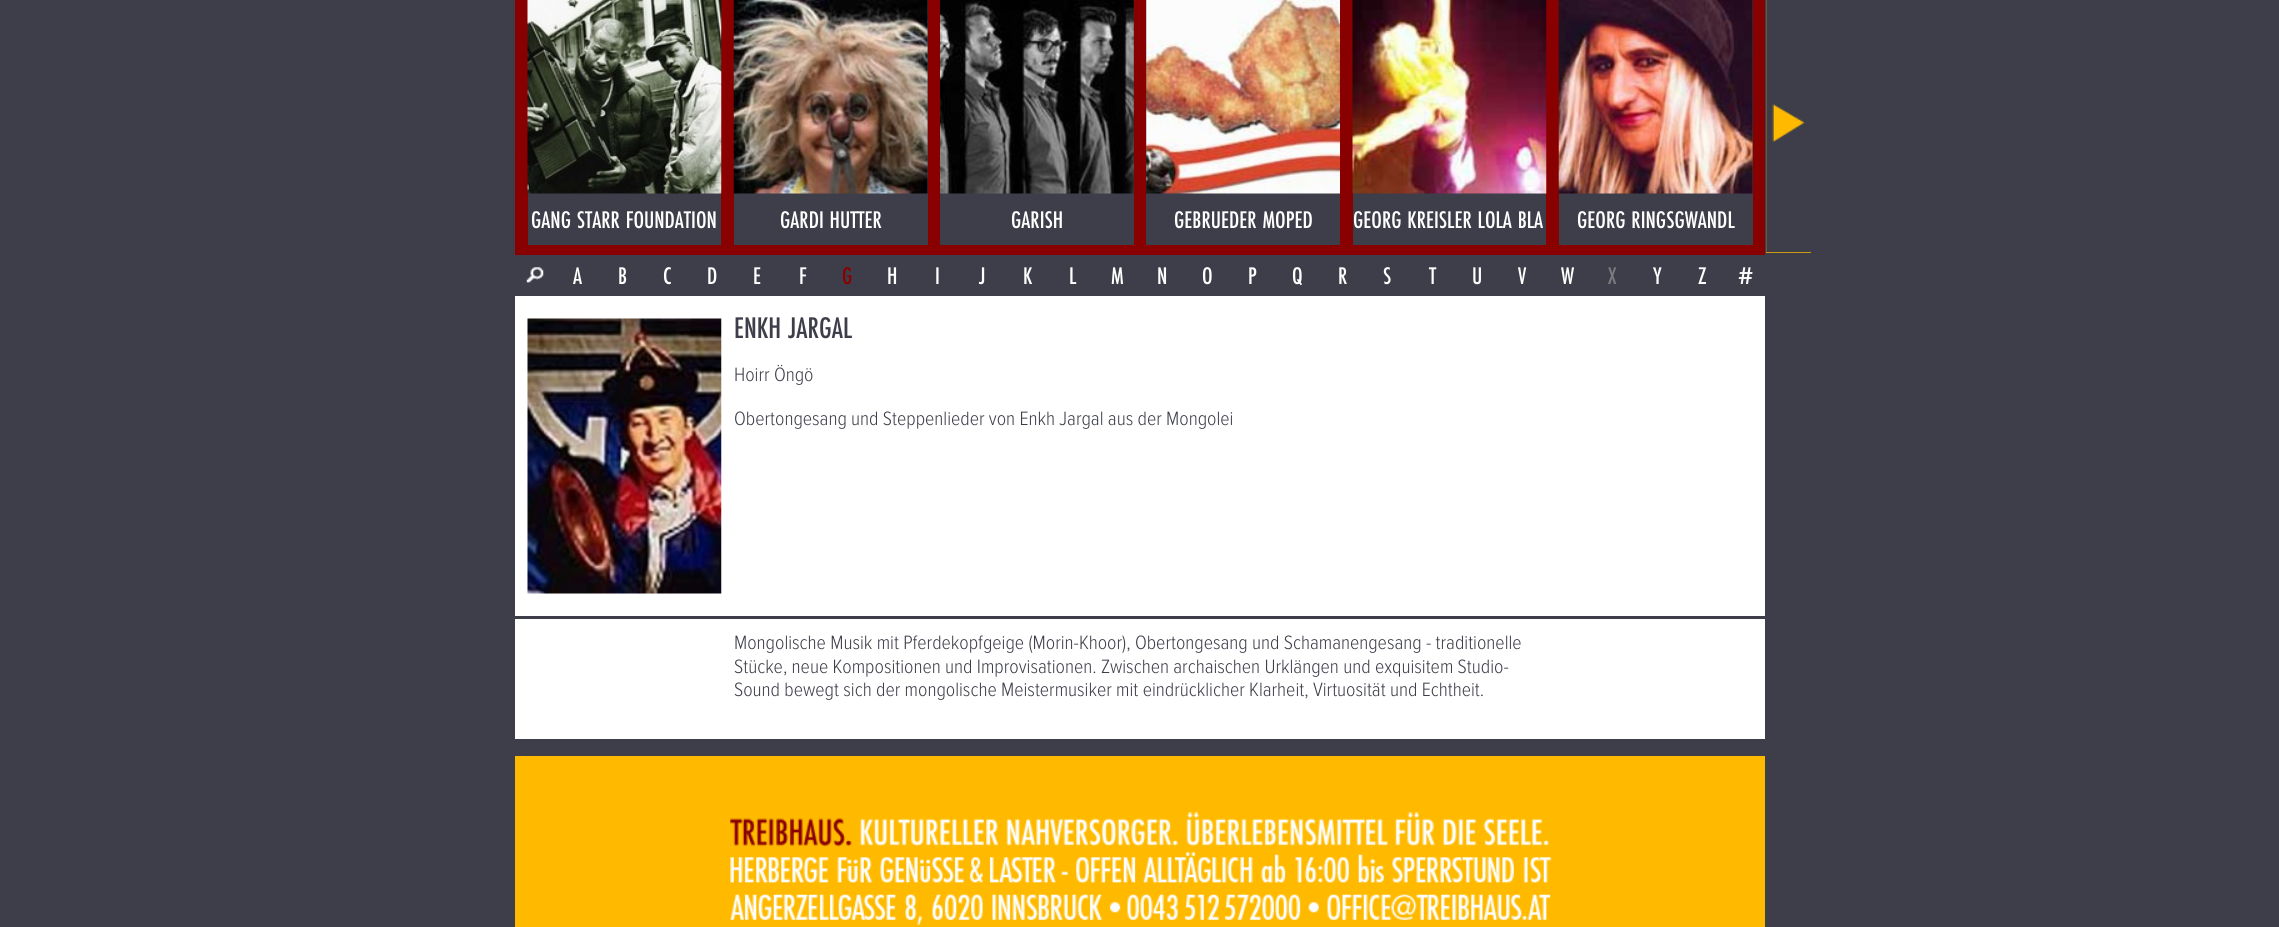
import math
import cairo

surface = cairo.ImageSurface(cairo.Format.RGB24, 2279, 927)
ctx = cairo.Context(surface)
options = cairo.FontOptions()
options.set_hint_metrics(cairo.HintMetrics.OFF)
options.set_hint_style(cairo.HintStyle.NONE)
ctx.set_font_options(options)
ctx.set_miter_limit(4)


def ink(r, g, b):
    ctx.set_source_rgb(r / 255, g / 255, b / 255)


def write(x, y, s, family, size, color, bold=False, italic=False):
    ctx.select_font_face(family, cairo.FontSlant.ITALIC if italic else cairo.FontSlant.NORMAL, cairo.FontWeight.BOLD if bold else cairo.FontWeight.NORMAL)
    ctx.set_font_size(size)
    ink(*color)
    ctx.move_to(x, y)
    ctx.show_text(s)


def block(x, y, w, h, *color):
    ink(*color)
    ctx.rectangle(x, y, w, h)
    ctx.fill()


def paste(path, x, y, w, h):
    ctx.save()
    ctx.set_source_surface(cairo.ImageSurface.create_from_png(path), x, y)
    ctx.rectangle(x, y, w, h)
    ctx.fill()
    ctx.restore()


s1 = dict(family="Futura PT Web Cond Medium", size=25, color=(255, 255, 255))
s2 = dict(family="Futura PT Web Cond Medium", size=25, color=(137, 0, 0))
s3 = dict(family="Futura PT Web Cond Medium", size=25, color=(122, 123, 128))
s4 = dict(family="Futura PT Web Cond Medium", size=31, color=(62, 62, 74))
s5 = dict(family="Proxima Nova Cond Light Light", size=20, color=(62, 62, 74))

ink(62, 62, 74)
ctx.paint()
block(515, 0, 1250, 255, 137, 0, 0)
block(528, 193, 193, 52, 62, 62, 74)
paste("pic1.png", 527, 0, 195, 194)
write(531, 228, "GANG STARR FOUNDATION", **s1)
block(734, 0, 194, 245, 62, 62, 74)
paste("pic2.png", 733, 0, 195, 194)
write(780, 228, "GARDI HUTTER", **s1)
block(940, 0, 194, 245, 62, 62, 74)
paste("pic3.png", 940, 0, 194, 194)
write(1011, 228, "GARISH", **s1)
block(1146, 0, 194, 245, 62, 62, 74)
paste("pic4.png", 1146, 0, 194, 194)
write(1174, 228, "GEBRUEDER MOPED", **s1)
block(1353, 193, 193, 52, 62, 62, 74)
paste("pic5.png", 1352, 0, 195, 194)
write(1353, 228, "GEORG KREISLER LOLA BLA", **s1)
block(1559, 0, 194, 245, 62, 62, 74)
paste("pic6.png", 1558, 0, 195, 194)
write(1577, 228, "GEORG RINGSGWANDL", **s1)
block(1766, 0, 45, 253, 255, 186, 0)
paste("pic7.png", 1766, 0, 45, 253)
paste("pic8.png", 526, 267, 18, 16)
write(573, 284, "A", **s1)
write(618, 284, "B", **s1)
write(663, 284, "C", **s1)
write(707, 284, "D", **s1)
write(753, 284, "E", **s1)
write(799, 284, "F", **s1)
write(842, 284, "G", **s2)
write(887, 284, "H", **s1)
write(935, 284, "I", **s1)
write(979, 284, "J", **s1)
write(1023, 284, "K", **s1)
write(1069, 284, "L", **s1)
write(1111, 284, "M", **s1)
write(1157, 284, "N", **s1)
write(1202, 284, "O", **s1)
write(1248, 284, "P", **s1)
write(1292, 284, "Q", **s1)
write(1338, 284, "R", **s1)
write(1383, 284, "S", **s1)
write(1429, 284, "T", **s1)
write(1472, 284, "U", **s1)
write(1518, 284, "V", **s1)
write(1561, 284, "W", **s1)
write(1608, 284, "X", **s3)
write(1653, 284, "Y", **s1)
write(1698, 284, "Z", **s1)
write(1738, 284, "#", **s1)
block(515, 296, 1250, 320, 255, 255, 255)
paste("pic9.png", 527, 318, 195, 276)
write(734, 338, "ENKH JARGAL", **s4)
write(734, 381, "Hoirr Öngö", **s5)
write(734, 425, "Obertongesang und Steppenlieder von Enkh Jargal aus der Mongolei", **s5)
block(515, 619, 1250, 120, 255, 255, 255)
write(734, 649, "Mongolische Musik mit Pferdekopfgeige (Morin-Khoor), Obertongesang und Schamanengesang - traditionelle", **s5)
write(734, 673, "Stücke, neue Kompositionen und Improvisationen. Zwischen archaischen Urklängen und exquisitem Studio-", **s5)
write(734, 696, "Sound bewegt sich der mongolische Meistermusiker mit eindrücklicher Klarheit, Virtuosität und Echtheit.", **s5)
block(515, 756, 1250, 171, 255, 186, 0)
paste("pic10.png", 730, 812, 822, 113)
surface.write_to_png("screenshot.png")
